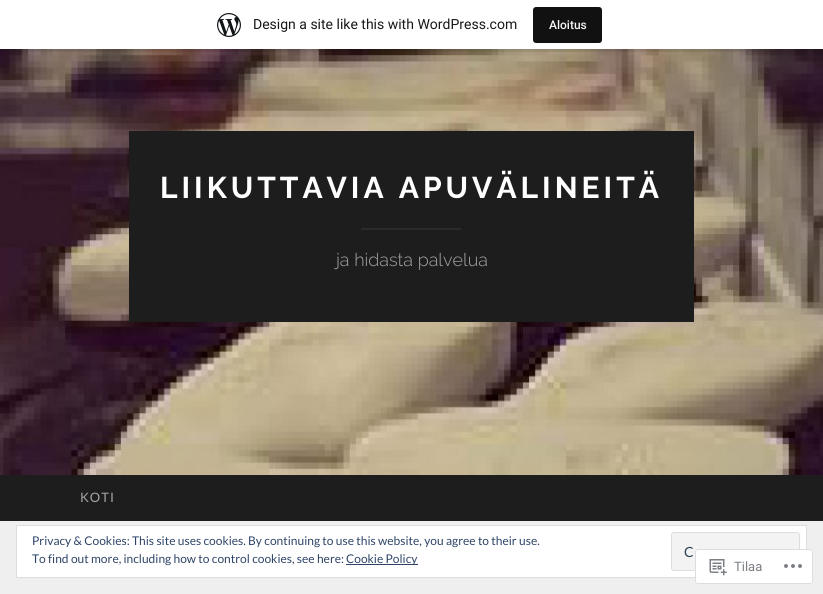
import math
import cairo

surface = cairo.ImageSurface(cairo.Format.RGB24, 823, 594)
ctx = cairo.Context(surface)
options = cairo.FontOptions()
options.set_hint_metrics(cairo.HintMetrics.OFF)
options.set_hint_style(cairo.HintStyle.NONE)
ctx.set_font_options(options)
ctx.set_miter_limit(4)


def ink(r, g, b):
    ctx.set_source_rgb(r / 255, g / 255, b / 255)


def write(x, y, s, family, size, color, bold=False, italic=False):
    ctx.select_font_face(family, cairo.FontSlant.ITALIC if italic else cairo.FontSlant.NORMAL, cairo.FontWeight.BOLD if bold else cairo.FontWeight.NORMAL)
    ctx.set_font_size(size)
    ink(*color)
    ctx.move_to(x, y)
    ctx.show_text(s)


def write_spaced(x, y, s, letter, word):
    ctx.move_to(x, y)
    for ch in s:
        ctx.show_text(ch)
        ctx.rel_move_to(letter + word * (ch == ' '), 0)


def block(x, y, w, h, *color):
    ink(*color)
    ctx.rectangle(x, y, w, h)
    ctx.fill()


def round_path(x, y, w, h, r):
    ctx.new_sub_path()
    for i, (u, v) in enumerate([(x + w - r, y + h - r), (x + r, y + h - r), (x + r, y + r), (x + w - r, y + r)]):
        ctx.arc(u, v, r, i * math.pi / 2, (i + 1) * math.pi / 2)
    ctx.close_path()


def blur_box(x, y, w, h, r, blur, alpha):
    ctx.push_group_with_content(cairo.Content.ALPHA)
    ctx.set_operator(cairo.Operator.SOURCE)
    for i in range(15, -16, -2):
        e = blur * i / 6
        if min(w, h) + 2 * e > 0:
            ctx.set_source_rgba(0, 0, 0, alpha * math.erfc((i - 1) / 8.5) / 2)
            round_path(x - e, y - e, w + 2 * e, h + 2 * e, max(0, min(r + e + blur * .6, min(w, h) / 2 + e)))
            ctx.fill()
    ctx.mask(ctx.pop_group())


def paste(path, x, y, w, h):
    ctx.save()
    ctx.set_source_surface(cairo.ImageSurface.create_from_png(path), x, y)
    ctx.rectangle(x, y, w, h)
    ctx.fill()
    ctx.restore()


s1 = dict(family="Roboto", size=14, color=(23, 23, 23))
s2 = dict(family="Roboto Medium", size=12, color=(246, 247, 247))
s3 = dict(family="Raleway Light", size=18, color=(165, 165, 165))
s4 = dict(family="Lato", size=12, color=(46, 68, 103))
s5 = dict(family="Lato", size=14, color=(46, 68, 83))
s6 = dict(family="Roboto", size=13, color=(123, 127, 132))

ink(239, 239, 239)
ctx.paint()
paste("pic2.png", 0, 49, 823, 426)
ink(0, 0, 0)
blur_box(0, 1, 823, 49, 0, 1, 0.05)
ctx.set_source_rgba(0, 0, 0, 0.08)
ctx.new_path()
ctx.move_to(1, 49)
ctx.line_to(1, 52)
ctx.line_to(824, 52)
ctx.line_to(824, 3)
ctx.line_to(823, 3)
ctx.line_to(823, 49)
ctx.close_path()
ctx.fill()
block(0, 0, 823, 49, 255, 255, 255)
paste("pic1.png", 217, 13, 24, 24)
write(253, 29, "Design a site like this with WordPress.com", **s1)
ink(17, 17, 17)
round_path(533, 7, 69, 36, 3)
ctx.fill()
write(549, 29, "Aloitus", **s2)
block(129, 131, 565, 191, 29, 29, 29)
ctx.select_font_face("Raleway", cairo.FontSlant.NORMAL, cairo.FontWeight.BOLD)
ctx.set_font_size(30)
ink(255, 255, 255)
write_spaced(160, 198, "LIIKUTTAVIA APUVÄLINEITÄ", 4, 0)
block(361, 228, 100, 2, 43, 43, 43)
write(336, 266, "ja hidasta palvelua", **s3)
block(0, 475, 823, 46, 29, 29, 29)
ctx.select_font_face("Lato")
ctx.set_font_size(13)
ink(165, 165, 165)
write_spaced(80, 502, "KOTI", 1, 0)
ink(255, 255, 255)
ctx.rectangle(16.5, 525.5, 790, 52)
ctx.fill_preserve()
ink(222, 222, 222)
ctx.set_line_width(1)
ctx.stroke()
write(32, 545, "Privacy & Cookies: This site uses cookies. By continuing to use this website, you agree to their use.", **s4)
ink(243, 243, 243)
round_path(671.5, 532.5, 128, 38, 2.5)
ctx.fill_preserve()
ink(222, 222, 222)
ctx.stroke()
write(684, 557, "C", **s5)
write(32, 563, "To find out more, including how to control cookies, see here:", **s4)
block(346, 564, 72, 1, 46, 68, 103)
write(346, 563, "Cookie Policy", **s4)
ctx.set_source_rgba(1, 1, 1, 0.98)
round_path(695, 549, 118, 35, 3)
ctx.fill()
round_path(695.5, 549.5, 117, 34, 2.5)
ctx.set_source_rgba(0.863, 0.863, 0.871, 0.98)
ctx.stroke()
paste("pic3.png", 709, 559, 18, 17)
write(734, 571, "Tilaa", **s6)
paste("pic4.png", 784, 564, 18, 4)
surface.write_to_png("screenshot.png")
